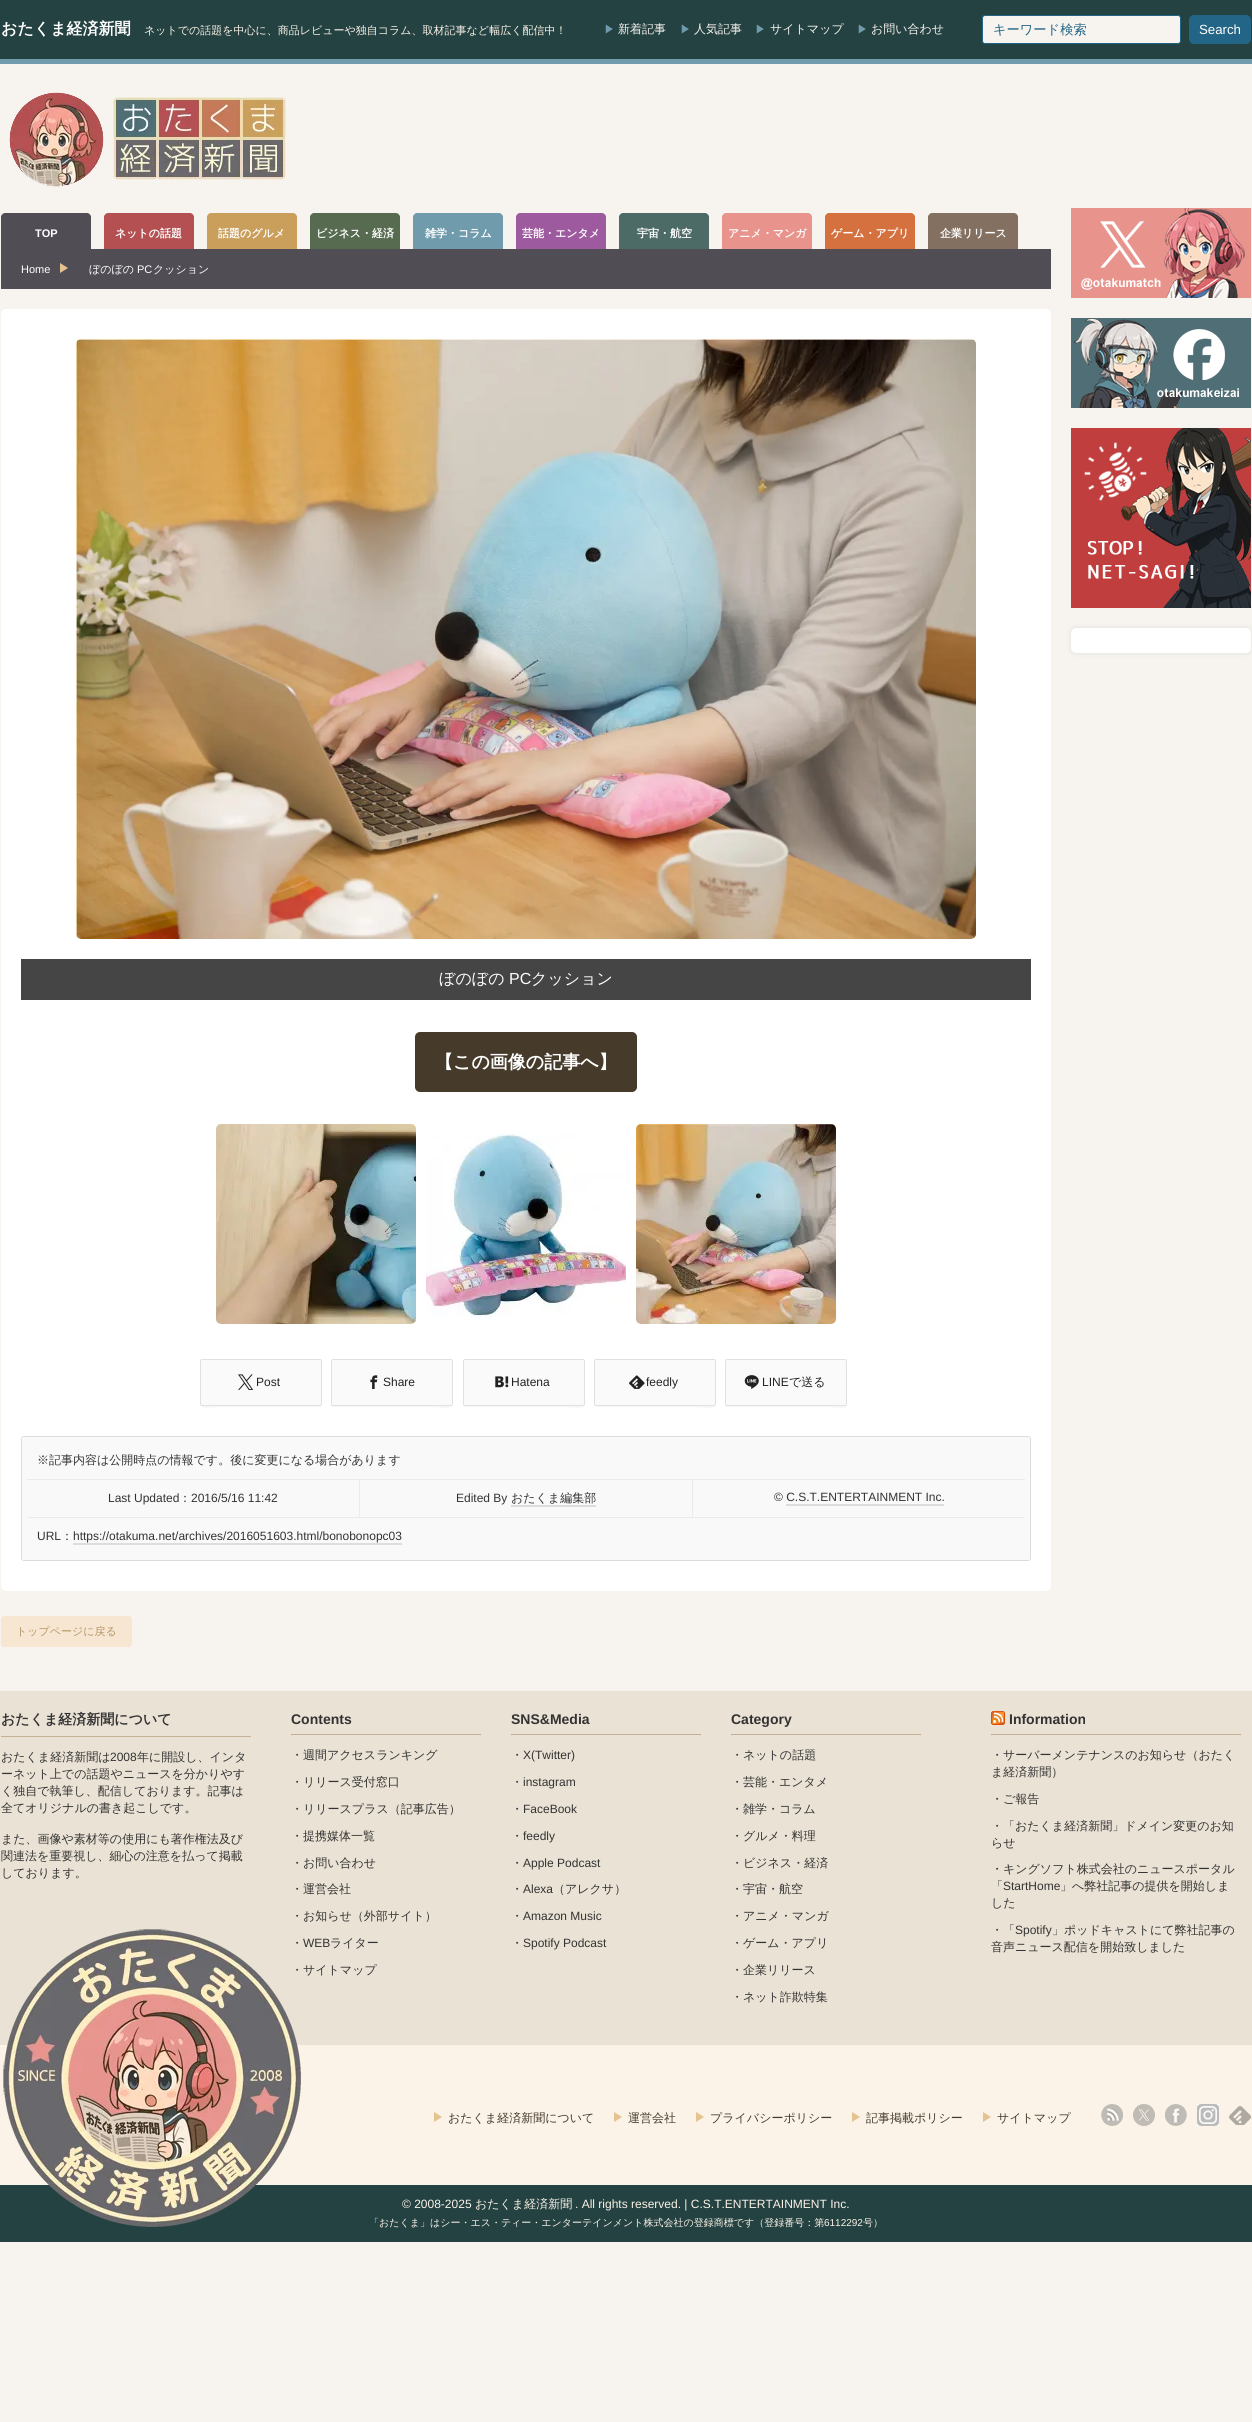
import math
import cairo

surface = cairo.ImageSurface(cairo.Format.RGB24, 1252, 2422)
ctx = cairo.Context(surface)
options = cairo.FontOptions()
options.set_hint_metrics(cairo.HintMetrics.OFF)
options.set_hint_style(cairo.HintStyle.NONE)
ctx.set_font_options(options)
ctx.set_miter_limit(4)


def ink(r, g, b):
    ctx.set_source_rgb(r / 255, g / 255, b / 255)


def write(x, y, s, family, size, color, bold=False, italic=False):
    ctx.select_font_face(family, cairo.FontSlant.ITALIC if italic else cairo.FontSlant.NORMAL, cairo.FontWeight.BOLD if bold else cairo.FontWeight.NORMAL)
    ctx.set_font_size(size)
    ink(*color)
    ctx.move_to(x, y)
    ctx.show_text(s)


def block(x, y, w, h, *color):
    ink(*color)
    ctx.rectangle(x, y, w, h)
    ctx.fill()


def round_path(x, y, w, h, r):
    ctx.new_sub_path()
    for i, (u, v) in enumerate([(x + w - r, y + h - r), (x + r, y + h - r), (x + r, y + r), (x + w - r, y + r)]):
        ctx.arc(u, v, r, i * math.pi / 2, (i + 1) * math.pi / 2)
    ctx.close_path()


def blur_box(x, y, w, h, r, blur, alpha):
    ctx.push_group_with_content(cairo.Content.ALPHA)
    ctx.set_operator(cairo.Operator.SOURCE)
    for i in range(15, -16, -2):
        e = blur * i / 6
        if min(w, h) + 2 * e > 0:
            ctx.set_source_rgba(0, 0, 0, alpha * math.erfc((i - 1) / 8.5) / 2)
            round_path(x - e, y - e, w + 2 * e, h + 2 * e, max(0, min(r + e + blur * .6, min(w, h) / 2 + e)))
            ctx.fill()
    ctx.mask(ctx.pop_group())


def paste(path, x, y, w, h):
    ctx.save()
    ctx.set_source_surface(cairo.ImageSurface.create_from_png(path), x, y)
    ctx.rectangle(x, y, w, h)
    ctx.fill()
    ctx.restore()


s1 = dict(family="WenQuanYi Zen Hei", size=16, color=(255, 255, 255), bold=True)
s2 = dict(family="WenQuanYi Zen Hei Medium", size=11, color=(251, 243, 232))
s3 = dict(family="WenQuanYi Zen Hei Medium", size=11, color=(112, 155, 172))
s4 = dict(family="WenQuanYi Zen Hei Medium", size=12, color=(247, 244, 239))
s5 = dict(family="WenQuanYi Zen Hei Medium", size=13.25, color=(35, 101, 134))
s6 = dict(family="Liberation Sans", size=13.25, color=(255, 255, 255))
s7 = dict(family="Liberation Sans", size=11, color=(255, 255, 255), bold=True)
s8 = dict(family="WenQuanYi Zen Hei", size=11, color=(255, 255, 255), bold=True)
s9 = dict(family="Liberation Sans", size=11, color=(255, 255, 255))
s10 = dict(family="WenQuanYi Zen Hei Medium", size=11, color=(255, 255, 255))
s11 = dict(family="WenQuanYi Zen Hei Medium", size=16, color=(255, 255, 255))
s12 = dict(family="Liberation Sans", size=16, color=(255, 255, 255))
s13 = dict(family="WenQuanYi Zen Hei", size=18, color=(255, 255, 255), bold=True)
s14 = dict(family="Liberation Sans", size=12, color=(34, 34, 34))
s15 = dict(family="WenQuanYi Zen Hei Medium", size=12, color=(34, 34, 34))
s16 = dict(family="WenQuanYi Zen Hei Medium", size=12, color=(51, 51, 51))
s17 = dict(family="Liberation Sans", size=12, color=(51, 51, 51))
s18 = dict(family="WenQuanYi Zen Hei Medium", size=11, color=(181, 150, 102))
s19 = dict(family="WenQuanYi Zen Hei", size=14, color=(51, 51, 51), bold=True)
s20 = dict(family="Liberation Sans", size=14, color=(51, 51, 51), bold=True)
s21 = dict(family="WenQuanYi Zen Hei Medium", size=12, color=(70, 59, 43))
s22 = dict(family="Liberation Sans", size=12, color=(251, 243, 232))
s23 = dict(family="WenQuanYi Zen Hei Medium", size=12, color=(251, 243, 232))
s24 = dict(family="WenQuanYi Zen Hei Medium", size=10, color=(251, 243, 232))
s25 = dict(family="Liberation Sans", size=10, color=(251, 243, 232))

ink(247, 244, 239)
ctx.paint()
block(0, 0, 1252, 59, 37, 66, 66)
block(0, 59, 1252, 5, 112, 155, 172)
write(1, 34, "おたくま経済新聞", **s1)
write(144, 34, "ネットでの話題を中心に、商品レビューや独自コラム、取材記事など幅広く配信中！", **s2)
write(604, 33, "▶", **s3)
write(618, 33, "新着記事", **s4)
write(680, 33, "▶", **s3)
write(694, 33, "人気記事", **s4)
write(755, 33, "▶", **s3)
write(770, 33, "サイトマップ", **s4)
write(857, 33, "▶", **s3)
write(871, 33, "お問い合わせ", **s4)
round_path(982.5, 15.5, 198, 28, 2.5)
ctx.fill_preserve()
ink(35, 101, 134)
ctx.set_line_width(1)
ctx.stroke()
write(993, 34, "キーワード検索", **s5)
round_path(1189, 15, 62, 29, 5)
ctx.fill()
write(1199, 34, "Search", **s6)
paste("pic1.png", 9, 92, 277, 95)
ink(80, 77, 84)
ctx.new_path()
ctx.move_to(5, 213)
ctx.line_to(87, 213)
ctx.curve_to(89, 213, 91, 215, 91, 217)
ctx.line_to(91, 249)
ctx.line_to(1, 249)
ctx.line_to(1, 217)
ctx.curve_to(1, 215, 3, 213, 5, 213)
ctx.close_path()
ctx.fill()
write(35, 237, "TOP", **s7)
ink(181, 80, 82)
ctx.new_path()
ctx.move_to(108, 213)
ctx.line_to(190, 213)
ctx.curve_to(192, 213, 194, 215, 194, 217)
ctx.line_to(194, 249)
ctx.line_to(104, 249)
ctx.line_to(104, 217)
ctx.curve_to(104, 215, 106, 213, 108, 213)
ctx.close_path()
ctx.fill()
write(115, 237, "ネットの話題", **s8)
ink(202, 159, 92)
ctx.new_path()
ctx.move_to(211, 213)
ctx.line_to(293, 213)
ctx.curve_to(295, 213, 297, 215, 297, 217)
ctx.line_to(297, 249)
ctx.line_to(207, 249)
ctx.line_to(207, 217)
ctx.curve_to(207, 215, 209, 213, 211, 213)
ctx.close_path()
ctx.fill()
write(218, 237, "話題のグルメ", **s8)
ink(86, 107, 79)
ctx.new_path()
ctx.move_to(314, 213)
ctx.line_to(396, 213)
ctx.curve_to(398, 213, 400, 215, 400, 217)
ctx.line_to(400, 249)
ctx.line_to(310, 249)
ctx.line_to(310, 217)
ctx.curve_to(310, 215, 312, 213, 314, 213)
ctx.close_path()
ctx.fill()
write(316, 237, "ビジネス・経済", **s8)
ink(112, 155, 172)
ctx.new_path()
ctx.move_to(417, 213)
ctx.line_to(499, 213)
ctx.curve_to(501, 213, 503, 215, 503, 217)
ctx.line_to(503, 249)
ctx.line_to(413, 249)
ctx.line_to(413, 217)
ctx.curve_to(413, 215, 415, 213, 417, 213)
ctx.close_path()
ctx.fill()
write(425, 237, "雑学・コラム", **s8)
ink(158, 90, 158)
ctx.new_path()
ctx.move_to(520, 213)
ctx.line_to(602, 213)
ctx.curve_to(604, 213, 606, 215, 606, 217)
ctx.line_to(606, 249)
ctx.line_to(516, 249)
ctx.line_to(516, 217)
ctx.curve_to(516, 215, 518, 213, 520, 213)
ctx.close_path()
ctx.fill()
write(522, 237, "芸能・エンタメ", **s8)
ink(76, 107, 102)
ctx.new_path()
ctx.move_to(623, 213)
ctx.line_to(705, 213)
ctx.curve_to(707, 213, 709, 215, 709, 217)
ctx.line_to(709, 249)
ctx.line_to(619, 249)
ctx.line_to(619, 217)
ctx.curve_to(619, 215, 621, 213, 623, 213)
ctx.close_path()
ctx.fill()
write(637, 237, "宇宙・航空", **s8)
ink(232, 148, 141)
ctx.new_path()
ctx.move_to(726, 213)
ctx.line_to(808, 213)
ctx.curve_to(810, 213, 812, 215, 812, 217)
ctx.line_to(812, 249)
ctx.line_to(722, 249)
ctx.line_to(722, 217)
ctx.curve_to(722, 215, 724, 213, 726, 213)
ctx.close_path()
ctx.fill()
write(728, 237, "アニメ・マンガ", **s8)
ink(212, 113, 63)
ctx.new_path()
ctx.move_to(829, 213)
ctx.line_to(911, 213)
ctx.curve_to(913, 213, 915, 215, 915, 217)
ctx.line_to(915, 249)
ctx.line_to(825, 249)
ctx.line_to(825, 217)
ctx.curve_to(825, 215, 827, 213, 829, 213)
ctx.close_path()
ctx.fill()
write(831, 237, "ゲーム・アプリ", **s8)
ink(131, 112, 96)
ctx.new_path()
ctx.move_to(932, 213)
ctx.line_to(1014, 213)
ctx.curve_to(1016, 213, 1018, 215, 1018, 217)
ctx.line_to(1018, 249)
ctx.line_to(928, 249)
ctx.line_to(928, 217)
ctx.curve_to(928, 215, 930, 213, 932, 213)
ctx.close_path()
ctx.fill()
write(940, 237, "企業リリース", **s8)
block(1, 249, 1050, 40, 80, 77, 84)
write(21, 273, "Home", **s9)
ink(228, 195, 144)
ctx.new_path()
ctx.move_to(60, 273)
ctx.line_to(60, 263)
ctx.line_to(68, 268)
ctx.close_path()
ctx.fill()
write(89, 273, "ぼのぼの", **s10)
write(137, 273, "PC", **s9)
write(153, 273, "クッション", **s10)
round_path(1, 309, 1050, 1282, 5)
ctx.fill()
paste("pic2.png", 76, 339, 900, 600)
block(21, 959, 1010, 41, 69, 69, 69)
write(439, 984, "ぼのぼの", **s11)
write(509, 984, "PC", **s12)
write(531, 984, "クッション", **s11)
ink(70, 59, 43)
round_path(415, 1032, 222, 60, 5)
ctx.fill()
write(435, 1068, "【この画像の記事へ】", **s13)
paste("pic3.png", 216, 1124, 200, 200)
paste("pic4.png", 426, 1134, 200, 183)
paste("pic5.png", 636, 1124, 200, 200)
ink(247, 247, 247)
ctx.new_path()
ctx.move_to(200, 1404)
ctx.curve_to(200, 1411, 216, 1407, 222, 1407)
ctx.line_to(321, 1407)
ctx.curve_to(322, 1406, 322, 1405, 322, 1404)
ctx.curve_to(322, 1405, 321, 1406, 320, 1406)
ctx.line_to(202, 1406)
ctx.curve_to(201, 1406, 200, 1405, 200, 1404)
ctx.close_path()
ctx.fill()
ink(250, 250, 250)
round_path(200.5, 1359.5, 121, 46, 1.5)
ctx.fill_preserve()
ink(225, 225, 225)
ctx.stroke()
paste("pic6.png", 238, 1374, 16, 16)
write(256, 1386, "Post", **s14)
ink(247, 247, 247)
ctx.new_path()
ctx.move_to(331, 1404)
ctx.curve_to(331, 1405, 331, 1406, 332, 1407)
ctx.line_to(431, 1407)
ctx.curve_to(437, 1407, 453, 1411, 453, 1404)
ctx.curve_to(453, 1405, 452, 1406, 451, 1406)
ctx.line_to(333, 1406)
ctx.curve_to(332, 1406, 331, 1405, 331, 1404)
ctx.close_path()
ctx.fill()
ink(250, 250, 250)
round_path(331.5, 1359.5, 121, 46, 1.5)
ctx.fill_preserve()
ink(225, 225, 225)
ctx.stroke()
paste("pic7.png", 370, 1375, 8, 14)
write(383, 1386, "Share", **s14)
ink(247, 247, 247)
ctx.new_path()
ctx.move_to(463, 1404)
ctx.curve_to(463, 1405, 463, 1406, 464, 1407)
ctx.line_to(563, 1407)
ctx.curve_to(569, 1407, 585, 1411, 585, 1404)
ctx.curve_to(585, 1405, 584, 1406, 583, 1406)
ctx.line_to(465, 1406)
ctx.curve_to(464, 1406, 463, 1405, 463, 1404)
ctx.close_path()
ctx.fill()
ink(250, 250, 250)
round_path(463.5, 1359.5, 121, 46, 1.5)
ctx.fill_preserve()
ink(225, 225, 225)
ctx.stroke()
paste("pic8.png", 495, 1376, 14, 12)
write(511, 1386, "Hatena", **s14)
ink(247, 247, 247)
ctx.new_path()
ctx.move_to(594, 1404)
ctx.curve_to(594, 1405, 594, 1406, 595, 1407)
ctx.line_to(694, 1407)
ctx.curve_to(700, 1407, 716, 1411, 716, 1404)
ctx.curve_to(716, 1405, 715, 1406, 714, 1406)
ctx.line_to(596, 1406)
ctx.curve_to(595, 1406, 594, 1405, 594, 1404)
ctx.close_path()
ctx.fill()
ink(250, 250, 250)
round_path(594.5, 1359.5, 121, 46, 1.5)
ctx.fill_preserve()
ink(225, 225, 225)
ctx.stroke()
paste("pic9.png", 629, 1375, 16, 14)
write(646, 1386, "feedly", **s14)
ink(247, 247, 247)
ctx.new_path()
ctx.move_to(725, 1404)
ctx.curve_to(725, 1405, 725, 1406, 726, 1407)
ctx.line_to(825, 1407)
ctx.curve_to(831, 1407, 847, 1411, 847, 1404)
ctx.curve_to(847, 1405, 846, 1406, 845, 1406)
ctx.line_to(727, 1406)
ctx.curve_to(726, 1406, 725, 1405, 725, 1404)
ctx.close_path()
ctx.fill()
ink(250, 250, 250)
round_path(725.5, 1359.5, 121, 46, 1.5)
ctx.fill_preserve()
ink(225, 225, 225)
ctx.stroke()
paste("pic10.png", 744, 1375, 15, 14)
write(762, 1386, "LINE", **s14)
write(789, 1386, "で送る", **s15)
round_path(21.5, 1436.5, 1009, 124, 2.5)
ink(220, 220, 220)
ctx.stroke()
ink(249, 249, 249)
round_path(22, 1437, 1008, 123, 2)
ctx.fill()
block(27, 1479, 998, 1, 237, 234, 234)
write(37, 1464, "※記事内容は公開時点の情報です。後に変更になる場合があります", **s16)
block(359, 1480, 1, 37, 237, 234, 234)
write(108, 1502, "Last Updated", **s17)
write(179, 1502, "：", **s16)
write(191, 1502, "2016/5/16 11:42", **s17)
block(692, 1480, 1, 37, 237, 234, 234)
write(456, 1502, "Edited By", **s17)
write(511, 1502, "おたくま編集部", **s16)
block(511, 1505, 85, 2, 221, 221, 221)
write(774, 1501, "© C.S.T.ENTERTAINMENT Inc.", **s17)
block(786, 1504, 158, 2, 221, 221, 221)
block(27, 1517, 998, 1, 237, 234, 234)
write(37, 1540, "URL", **s17)
write(61, 1540, "：", **s16)
write(73, 1540, "https://otakuma.net/archives/2016051603.html/bonobonopc03", **s17)
block(73, 1543, 329, 2, 221, 221, 221)
ink(246, 230, 210)
round_path(1, 1616, 131, 31, 3)
ctx.fill()
write(16, 1635, "トップページに戻る", **s18)
paste("pic11.png", 1071, 208, 180, 90)
paste("pic12.png", 1071, 318, 180, 90)
paste("pic13.png", 1071, 428, 180, 180)
ink(221, 221, 221)
blur_box(1071, 628, 180, 25, 5, 2.5, 1)
ink(255, 255, 255)
round_path(1071, 628, 180, 25, 5)
ctx.fill()
block(0, 1691, 1252, 354, 234, 226, 213)
block(1, 1736, 250, 1, 198, 177, 148)
write(1, 1724, "おたくま経済新聞について", **s19)
write(1, 1761, "おたくま経済新聞は", **s16)
write(110, 1761, "2008", **s17)
write(137, 1761, "年に開設し、インタ", **s16)
write(1, 1778, "ーネット上での話題やニュースを分かりやす", **s16)
write(1, 1795, "く独自で執筆し、配信しております。記事は", **s16)
write(1, 1812, "全てオリジナルの書き起こしです。", **s16)
write(1, 1843, "また、画像や素材等の使用にも著作権法及び", **s16)
write(1, 1860, "関連法を重要視し、細心の注意を払って掲載", **s16)
write(1, 1877, "しております。", **s16)
block(291, 1734, 190, 1, 198, 177, 148)
write(291, 1724, "Contents", **s20)
write(291, 1759, "・週間アクセスランキング", **s16)
write(291, 1786, "・リリース受付窓口", **s16)
write(291, 1813, "・リリースプラス（記事広告）", **s16)
write(291, 1840, "・提携媒体一覧", **s16)
write(291, 1867, "・お問い合わせ", **s16)
write(291, 1893, "・運営会社", **s16)
write(291, 1920, "・お知らせ（外部サイト）", **s16)
write(291, 1947, "・", **s16)
write(303, 1947, "WEB", **s17)
write(330, 1947, "ライター", **s16)
write(291, 1974, "・サイトマップ", **s16)
block(511, 1734, 190, 1, 198, 177, 148)
write(511, 1724, "SNS&Media", **s20)
write(511, 1759, "・", **s16)
write(523, 1759, "X(Twitter)", **s17)
write(511, 1786, "・", **s16)
write(523, 1786, "instagram", **s17)
write(511, 1813, "・", **s16)
write(523, 1813, "FaceBook", **s17)
write(511, 1840, "・", **s16)
write(523, 1840, "feedly", **s17)
write(511, 1867, "・", **s16)
write(523, 1867, "Apple Podcast", **s17)
write(511, 1893, "・", **s16)
write(523, 1893, "Alexa", **s17)
write(553, 1893, "（アレクサ）", **s16)
write(511, 1920, "・", **s16)
write(523, 1920, "Amazon Music", **s17)
write(511, 1947, "・", **s16)
write(523, 1947, "Spotify Podcast", **s17)
block(731, 1734, 190, 1, 198, 177, 148)
write(731, 1724, "Category", **s20)
write(731, 1759, "・ネットの話題", **s16)
write(731, 1786, "・芸能・エンタメ", **s16)
write(731, 1813, "・雑学・コラム", **s16)
write(731, 1840, "・グルメ・料理", **s16)
write(731, 1867, "・ビジネス・経済", **s16)
write(731, 1893, "・宇宙・航空", **s16)
write(731, 1920, "・アニメ・マンガ", **s16)
write(731, 1947, "・ゲーム・アプリ", **s16)
write(731, 1974, "・企業リリース", **s16)
write(731, 2001, "・ネット詐欺特集", **s16)
block(991, 1734, 250, 1, 198, 177, 148)
paste("pic14.png", 991, 1711, 14, 14)
write(1009, 1724, "Information", **s20)
write(991, 1759, "・サーバーメンテナンスのお知らせ（おたく", **s16)
write(991, 1776, "ま経済新聞）", **s16)
write(991, 1803, "・ご報告", **s16)
write(991, 1830, "・「おたくま経済新聞」ドメイン変更のお知", **s16)
write(991, 1847, "らせ", **s16)
write(991, 1873, "・キングソフト株式会社のニュースポータル", **s16)
write(991, 1890, "「", **s16)
write(1003, 1890, "StartHome", **s17)
write(1060, 1890, "」へ弊社記事の提供を開始しま", **s16)
write(991, 1907, "した", **s16)
write(991, 1934, "・「", **s16)
write(1015, 1934, "Spotify", **s17)
write(1052, 1934, "」ポッドキャストにて弊社記事の", **s16)
write(991, 1951, "音声ニュース配信を開始致しました", **s16)
block(0, 2045, 1252, 140, 251, 243, 232)
block(0, 2185, 1252, 57, 37, 66, 66)
paste("pic15.png", 3, 1929, 298, 298)
ink(228, 195, 144)
ctx.new_path()
ctx.move_to(434, 2122)
ctx.line_to(434, 2112)
ctx.line_to(442, 2117)
ctx.close_path()
ctx.fill()
write(448, 2122, "おたくま経済新聞について", **s21)
ink(228, 195, 144)
ctx.new_path()
ctx.move_to(614, 2122)
ctx.line_to(614, 2112)
ctx.line_to(622, 2117)
ctx.close_path()
ctx.fill()
write(628, 2122, "運営会社", **s21)
ink(228, 195, 144)
ctx.new_path()
ctx.move_to(696, 2122)
ctx.line_to(696, 2112)
ctx.line_to(704, 2117)
ctx.close_path()
ctx.fill()
write(710, 2122, "プライバシーポリシー", **s21)
ink(228, 195, 144)
ctx.new_path()
ctx.move_to(852, 2122)
ctx.line_to(852, 2112)
ctx.line_to(860, 2117)
ctx.close_path()
ctx.fill()
write(866, 2122, "記事掲載ポリシー", **s21)
ink(228, 195, 144)
ctx.new_path()
ctx.move_to(983, 2122)
ctx.line_to(983, 2112)
ctx.line_to(991, 2117)
ctx.close_path()
ctx.fill()
write(997, 2122, "サイトマップ", **s21)
paste("pic16.png", 1101, 2104, 22, 22)
paste("pic17.png", 1133, 2104, 22, 22)
paste("pic18.png", 1165, 2104, 22, 22)
paste("pic19.png", 1197, 2104, 22, 22)
paste("pic20.png", 1229, 2106, 22, 19)
write(402, 2208, "© 2008-2025", **s22)
write(475, 2208, "おたくま経済新聞", **s23)
write(575, 2208, ". All rights reserved. | C.S.T.ENTERTAINMENT Inc.", **s22)
write(369, 2226, "「おたくま」はシー・エス・ティー・エンターテインメント株式会社の登録商標です（登録番号：第", **s24)
write(824, 2226, "6112292", **s25)
write(863, 2226, "号）", **s24)
surface.write_to_png("screenshot.png")
